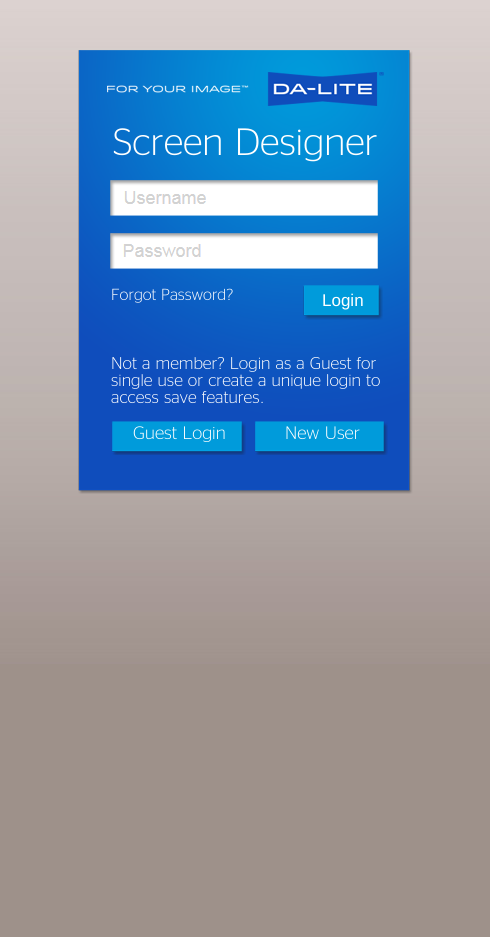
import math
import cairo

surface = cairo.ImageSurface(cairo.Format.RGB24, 490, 937)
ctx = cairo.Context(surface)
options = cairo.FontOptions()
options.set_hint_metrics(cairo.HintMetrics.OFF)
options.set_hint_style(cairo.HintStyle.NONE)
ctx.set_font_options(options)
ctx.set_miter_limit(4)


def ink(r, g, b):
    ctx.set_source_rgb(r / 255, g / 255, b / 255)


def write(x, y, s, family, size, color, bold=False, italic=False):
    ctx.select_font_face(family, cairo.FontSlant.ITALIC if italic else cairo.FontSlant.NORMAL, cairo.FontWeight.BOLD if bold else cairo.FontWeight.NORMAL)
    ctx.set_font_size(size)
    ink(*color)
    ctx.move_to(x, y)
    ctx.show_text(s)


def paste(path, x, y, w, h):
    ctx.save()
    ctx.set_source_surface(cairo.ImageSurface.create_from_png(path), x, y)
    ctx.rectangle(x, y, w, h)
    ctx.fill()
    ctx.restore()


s1 = dict(family="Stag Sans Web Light", size=38, color=(255, 255, 255))
s2 = dict(family="Stag Sans Web Light", size=16, color=(255, 255, 255))
s3 = dict(family="Liberation Sans", size=17, color=(255, 255, 255))
s4 = dict(family="Stag Sans Web Light", size=17, color=(255, 255, 255))
s5 = dict(family="Stag Sans Web Light", size=18, color=(255, 255, 255))

ink(158, 145, 138)
ctx.paint()
paste("pic1.png", 0, 0, 490, 664)
paste("pic3.png", 78, 50, 335, 444)
paste("pic2.png", 107, 72, 277, 34)
write(113, 155, "Screen Designer", **s1)
paste("pic4.png", 110, 180, 268, 36)
paste("pic5.png", 110, 233, 268, 36)
write(111, 300, "Forgot Password?", **s2)
paste("pic6.png", 303, 285, 80, 35)
write(322, 306, "Login", **s3)
write(111, 369, "Not a member? Login as a Guest for", **s4)
write(111, 386, "single use or create a unique login to", **s4)
write(111, 403, "access save features.", **s4)
paste("pic7.png", 111, 421, 135, 34)
write(133, 439, "Guest Login", **s5)
paste("pic8.png", 254, 421, 134, 34)
write(285, 439, "New User", **s5)
surface.write_to_png("screenshot.png")
